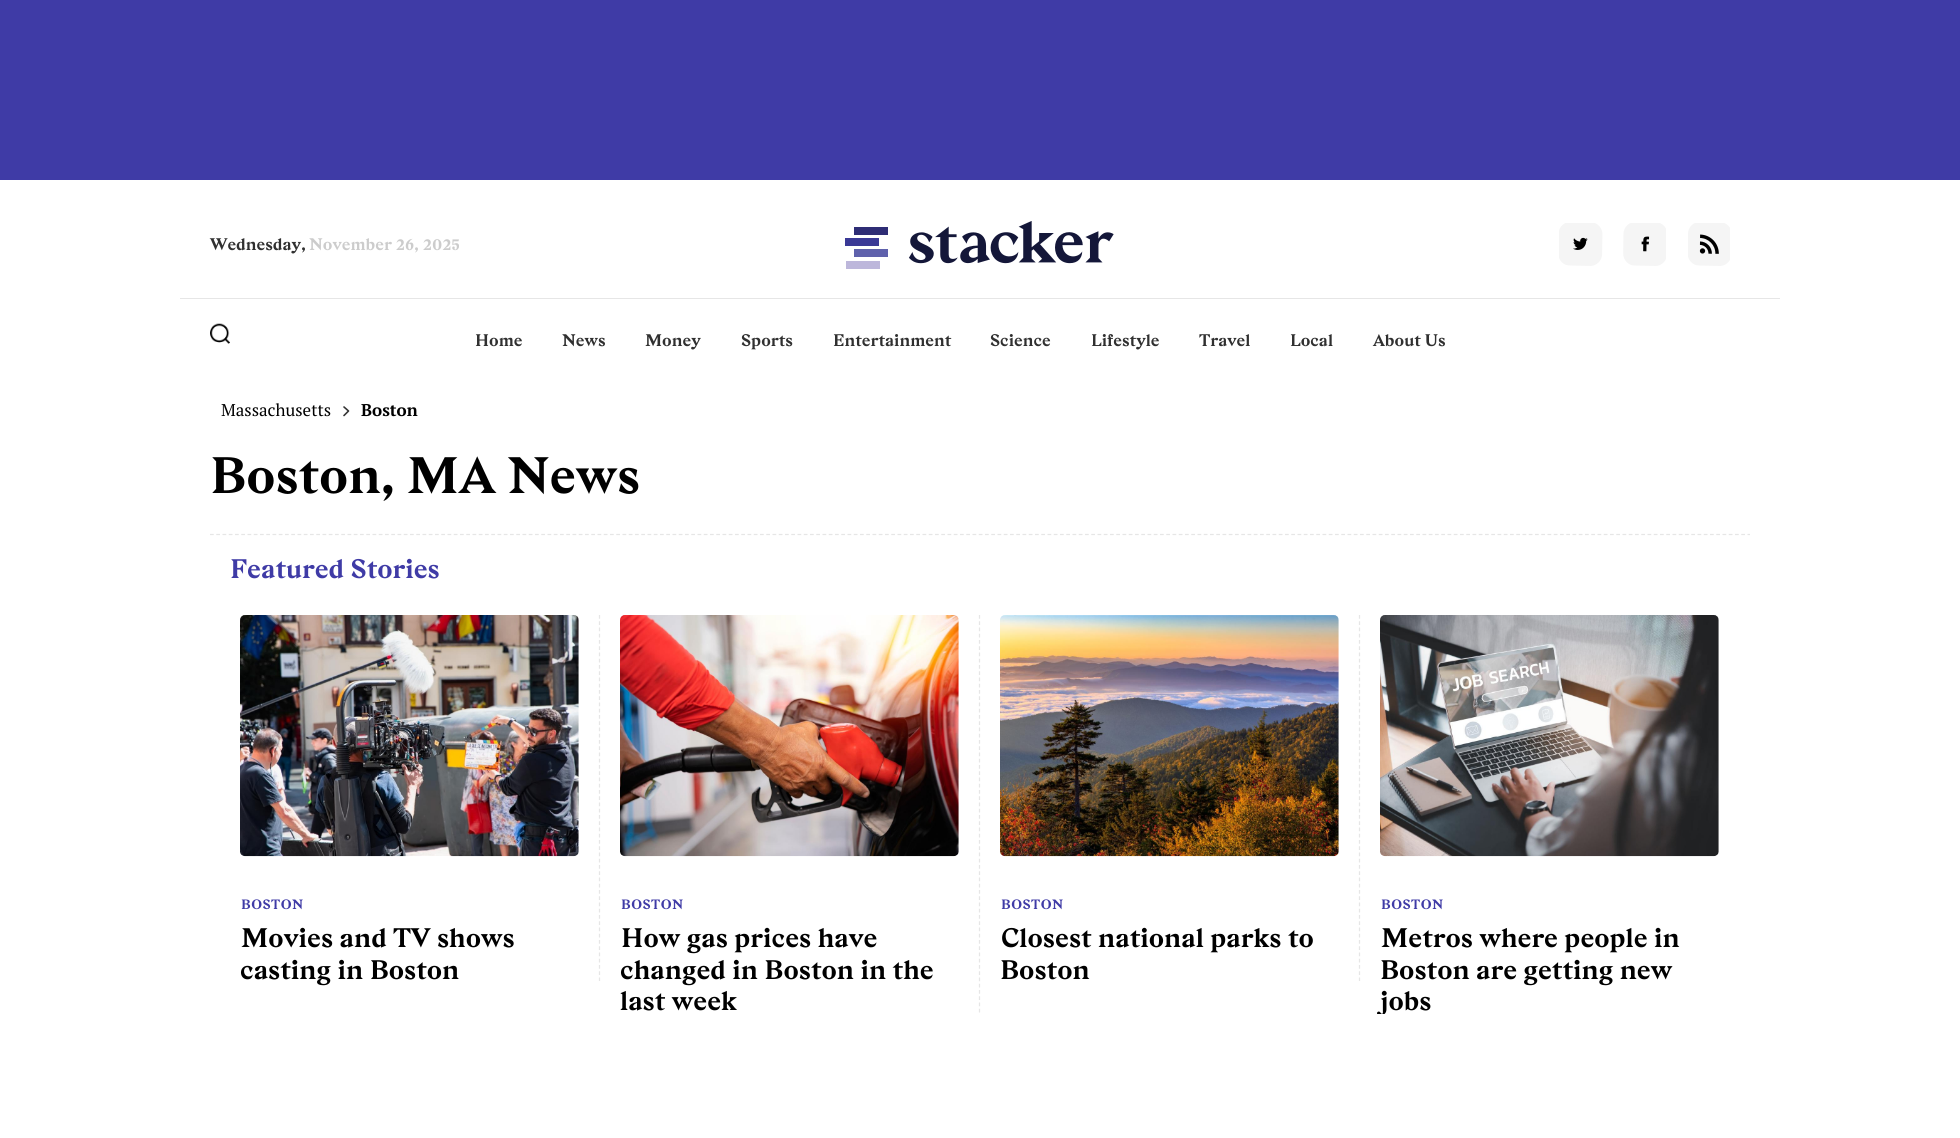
import math
import cairo

surface = cairo.ImageSurface(cairo.Format.RGB24, 1960, 1138)
ctx = cairo.Context(surface)
options = cairo.FontOptions()
options.set_hint_metrics(cairo.HintMetrics.OFF)
options.set_hint_style(cairo.HintStyle.NONE)
ctx.set_font_options(options)
ctx.set_miter_limit(4)


def ink(r, g, b):
    ctx.set_source_rgb(r / 255, g / 255, b / 255)


def write(x, y, s, family, size, color, bold=False, italic=False):
    ctx.select_font_face(family, cairo.FontSlant.ITALIC if italic else cairo.FontSlant.NORMAL, cairo.FontWeight.BOLD if bold else cairo.FontWeight.NORMAL)
    ctx.set_font_size(size)
    ink(*color)
    ctx.move_to(x, y)
    ctx.show_text(s)


def write_spaced(x, y, s, letter, word):
    ctx.move_to(x, y)
    for ch in s:
        ctx.show_text(ch)
        ctx.rel_move_to(letter + word * (ch == ' '), 0)


def block(x, y, w, h, *color):
    ink(*color)
    ctx.rectangle(x, y, w, h)
    ctx.fill()


def paste(path, x, y, w, h):
    ctx.save()
    ctx.set_source_surface(cairo.ImageSurface.create_from_png(path), x, y)
    ctx.rectangle(x, y, w, h)
    ctx.fill()
    ctx.restore()


s1 = dict(family="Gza", size=16.75, color=(48, 48, 48), bold=True)
s2 = dict(family="Gza", size=16.75, color=(204, 204, 204), bold=True)
s3 = dict(family="PT Serif", size=17, color=(0, 0, 0))
s4 = dict(family="PT Serif", size=17, color=(0, 0, 0), bold=True)
s5 = dict(family="Gza", size=51, color=(0, 0, 0), bold=True)
s6 = dict(family="Gza", size=26.75, color=(63, 59, 166), bold=True)
s7 = dict(family="Gza", size=26.75, color=(0, 0, 0), bold=True)

ink(63, 59, 166)
ctx.paint()
block(0, 180, 1960, 834, 255, 255, 255)
write(210, 250, "Wednesday,", **s1)
write(309, 250, "November 26, 2025", **s2)
paste("pic1.png", 845, 221, 269, 48)
paste("pic2.png", 1559, 223, 44, 43)
paste("pic3.png", 1623, 223, 43, 43)
paste("pic4.png", 1688, 223, 42, 43)
paste("pic5.png", 210, 323, 20, 21)
block(180, 298, 1600, 1, 230, 230, 230)
write(475, 346, "Home", **s1)
write(562, 346, "News", **s1)
write(645, 346, "Money", **s1)
write(741, 346, "Sports", **s1)
write(833, 346, "Entertainment", **s1)
write(990, 346, "Science", **s1)
write(1091, 346, "Lifestyle", **s1)
write(1199, 346, "Travel", **s1)
write(1290, 346, "Local", **s1)
write(1373, 346, "About Us", **s1)
write(221, 416, "Massachusetts", **s3)
ctx.new_path()
ctx.move_to(344, 415.5)
ctx.line_to(348.5, 411)
ctx.line_to(344, 407)
ink(51, 51, 51)
ctx.set_line_width(1.6)
ctx.set_line_cap(cairo.LineCap.ROUND)
ctx.set_line_join(cairo.LineJoin.ROUND)
ctx.stroke()
write(361, 416, "Boston", **s4)
write(210, 493, "Boston, MA News", **s5)
ctx.new_path()
ctx.move_to(210, 534.5)
ctx.line_to(1750, 534.5)
ink(230, 230, 230)
ctx.set_line_width(1.2)
ctx.set_line_cap(cairo.LineCap.BUTT)
ctx.set_line_join(cairo.LineJoin.MITER)
ctx.set_dash([3.75, 2.5])
ctx.stroke()
write(230, 578, "Featured Stories", **s6)
ctx.new_path()
ctx.move_to(599.5, 615)
ctx.line_to(599.5, 981)
ink(230, 230, 230)
ctx.stroke()
paste("pic6.png", 240, 615, 339, 242)
ctx.set_font_size(13.5)
ink(63, 59, 166)
write_spaced(241, 909, "BOSTON", 0.5, 0)
write(241, 947, "Movies and TV shows", **s7)
write(240, 979, "casting in Boston", **s7)
ctx.new_path()
ctx.move_to(979.5, 615)
ctx.line_to(979.5, 1012.5)
ink(230, 230, 230)
ctx.stroke()
paste("pic7.png", 620, 615, 339, 242)
ctx.set_font_size(13.5)
ink(63, 59, 166)
write_spaced(621, 909, "BOSTON", 0.5, 0)
write(621, 947, "How gas prices have", **s7)
write(620, 979, "changed in Boston in the", **s7)
write(620, 1010, "last week", **s7)
ctx.new_path()
ctx.move_to(1359.5, 615)
ctx.line_to(1359.5, 981)
ink(230, 230, 230)
ctx.stroke()
paste("pic8.png", 1000, 615, 339, 242)
ctx.set_font_size(13.5)
ink(63, 59, 166)
write_spaced(1001, 909, "BOSTON", 0.5, 0)
write(1001, 947, "Closest national parks to", **s7)
write(1000, 979, "Boston", **s7)
paste("pic9.png", 1380, 615, 339, 242)
ctx.set_font_size(13.5)
ink(63, 59, 166)
write_spaced(1381, 909, "BOSTON", 0.5, 0)
write(1381, 947, "Metros where people in", **s7)
write(1380, 979, "Boston are getting new", **s7)
write(1380, 1010, "jobs", **s7)
block(0, 1014, 1960, 124, 255, 255, 255)
surface.write_to_png("screenshot.png")
